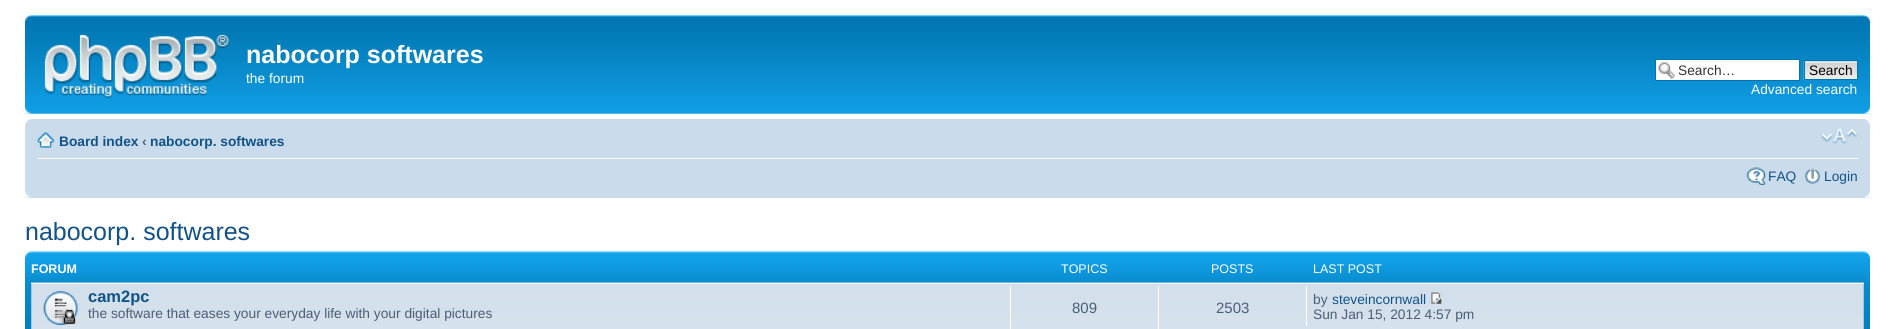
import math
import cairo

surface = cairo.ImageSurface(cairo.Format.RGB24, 1894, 329)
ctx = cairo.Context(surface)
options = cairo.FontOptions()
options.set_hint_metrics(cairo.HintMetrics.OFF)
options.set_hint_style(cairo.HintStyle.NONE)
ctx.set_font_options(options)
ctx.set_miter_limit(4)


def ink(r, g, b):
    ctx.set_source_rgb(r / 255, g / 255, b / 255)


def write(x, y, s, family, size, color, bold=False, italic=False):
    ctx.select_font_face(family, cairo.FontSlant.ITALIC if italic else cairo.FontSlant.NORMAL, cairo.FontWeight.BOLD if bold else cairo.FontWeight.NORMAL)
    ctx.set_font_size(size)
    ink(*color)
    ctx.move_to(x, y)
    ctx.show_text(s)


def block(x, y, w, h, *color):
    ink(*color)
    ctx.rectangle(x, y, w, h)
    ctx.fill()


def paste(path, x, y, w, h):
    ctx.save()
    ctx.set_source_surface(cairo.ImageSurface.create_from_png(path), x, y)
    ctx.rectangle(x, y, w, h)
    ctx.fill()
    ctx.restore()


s1 = dict(family="Liberation Sans", size=25, color=(255, 255, 255), bold=True)
s2 = dict(family="Liberation Sans", size=13.75, color=(255, 255, 255))
s3 = dict(family="Liberation Sans", size=13.75, color=(51, 51, 51))
s4 = dict(family="Liberation Sans", size=13.75, color=(0, 0, 0))
s5 = dict(family="Liberation Sans", size=13.75, color=(16, 82, 137), bold=True)
s6 = dict(family="Liberation Sans", size=13.75, color=(83, 100, 130), bold=True)
s7 = dict(family="Liberation Sans", size=13.75, color=(16, 82, 137))
s8 = dict(family="Liberation Sans", size=25, color=(16, 82, 137))
s9 = dict(family="Liberation Sans", size=12.5, color=(255, 255, 255), bold=True)
s10 = dict(family="Liberation Sans", size=12.5, color=(255, 255, 255))
s11 = dict(family="Liberation Sans", size=16.5, color=(16, 82, 137), bold=True)
s12 = dict(family="Liberation Sans", size=13.75, color=(76, 93, 119))
s13 = dict(family="Liberation Sans", size=15, color=(76, 93, 119))

ink(255, 255, 255)
ctx.paint()
paste("pic1.png", 25, 15, 1845, 99)
paste("pic2.png", 25, 15, 7, 7)
paste("pic3.png", 1863, 15, 7, 7)
paste("pic4.png", 44, 34, 185, 64)
write(246, 63, "nabocorp softwares", **s1)
write(246, 83, "the forum", **s2)
block(1656, 60, 143, 20, 255, 255, 255)
paste("pic5.png", 1658, 62, 18, 17)
ctx.rectangle(1655.5, 59.5, 144, 21)
ink(0, 117, 176)
ctx.set_line_width(1)
ctx.stroke()
write(1678, 75, "Search…", **s3)
paste("pic6.png", 1803, 61, 54, 19)
ctx.rectangle(1804.5, 60.5, 53, 19)
ink(0, 117, 176)
ctx.stroke()
write(1809, 75, "Search", **s4)
write(1751, 94, "Advanced search", **s2)
paste("pic7.png", 25, 107, 7, 7)
paste("pic8.png", 1863, 107, 7, 7)
block(25, 119, 1845, 79, 202, 220, 235)
paste("pic9.png", 25, 119, 7, 6)
paste("pic10.png", 1864, 119, 6, 6)
block(38, 158, 1820, 1, 255, 255, 255)
paste("pic11.png", 37, 132, 17, 16)
write(59, 146, "Board index", **s5)
write(142, 146, "‹", **s6)
write(150, 146, "nabocorp. softwares", **s5)
paste("pic12.png", 1821, 128, 37, 16)
paste("pic13.png", 1746, 167, 20, 18)
write(1768, 181, "FAQ", **s7)
paste("pic14.png", 1804, 168, 17, 16)
write(1824, 181, "Login", **s7)
paste("pic15.png", 25, 191, 6, 7)
paste("pic16.png", 1864, 191, 6, 7)
write(25, 240, "nabocorp. softwares", **s8)
paste("pic17.png", 25, 251, 1845, 78)
paste("pic18.png", 25, 251, 7, 7)
paste("pic19.png", 1863, 251, 7, 7)
write(31, 273, "FORUM", **s9)
write(1061, 273, "TOPICS", **s10)
write(1211, 273, "POSTS", **s10)
write(1313, 273, "LAST POST", **s10)
paste("pic20.png", 31, 282, 1833, 47)
block(31, 283, 1833, 1, 255, 255, 255)
paste("pic21.png", 43, 291, 35, 34)
write(88, 302, "cam2pc", **s11)
write(88, 318, "the software that eases your everyday life with your digital pictures", **s12)
block(1010, 286, 1, 43, 255, 255, 255)
write(1072, 313, "809", **s13)
block(1158, 286, 1, 43, 255, 255, 255)
write(1216, 313, "2503", **s13)
block(1306, 286, 1, 40, 255, 255, 255)
write(1313, 304, "by", **s12)
write(1332, 304, "steveincornwall", **s7)
paste("pic22.png", 1431, 292, 11, 12)
write(1313, 319, "Sun Jan 15, 2012 4:57 pm", **s12)
surface.write_to_png("screenshot.png")
